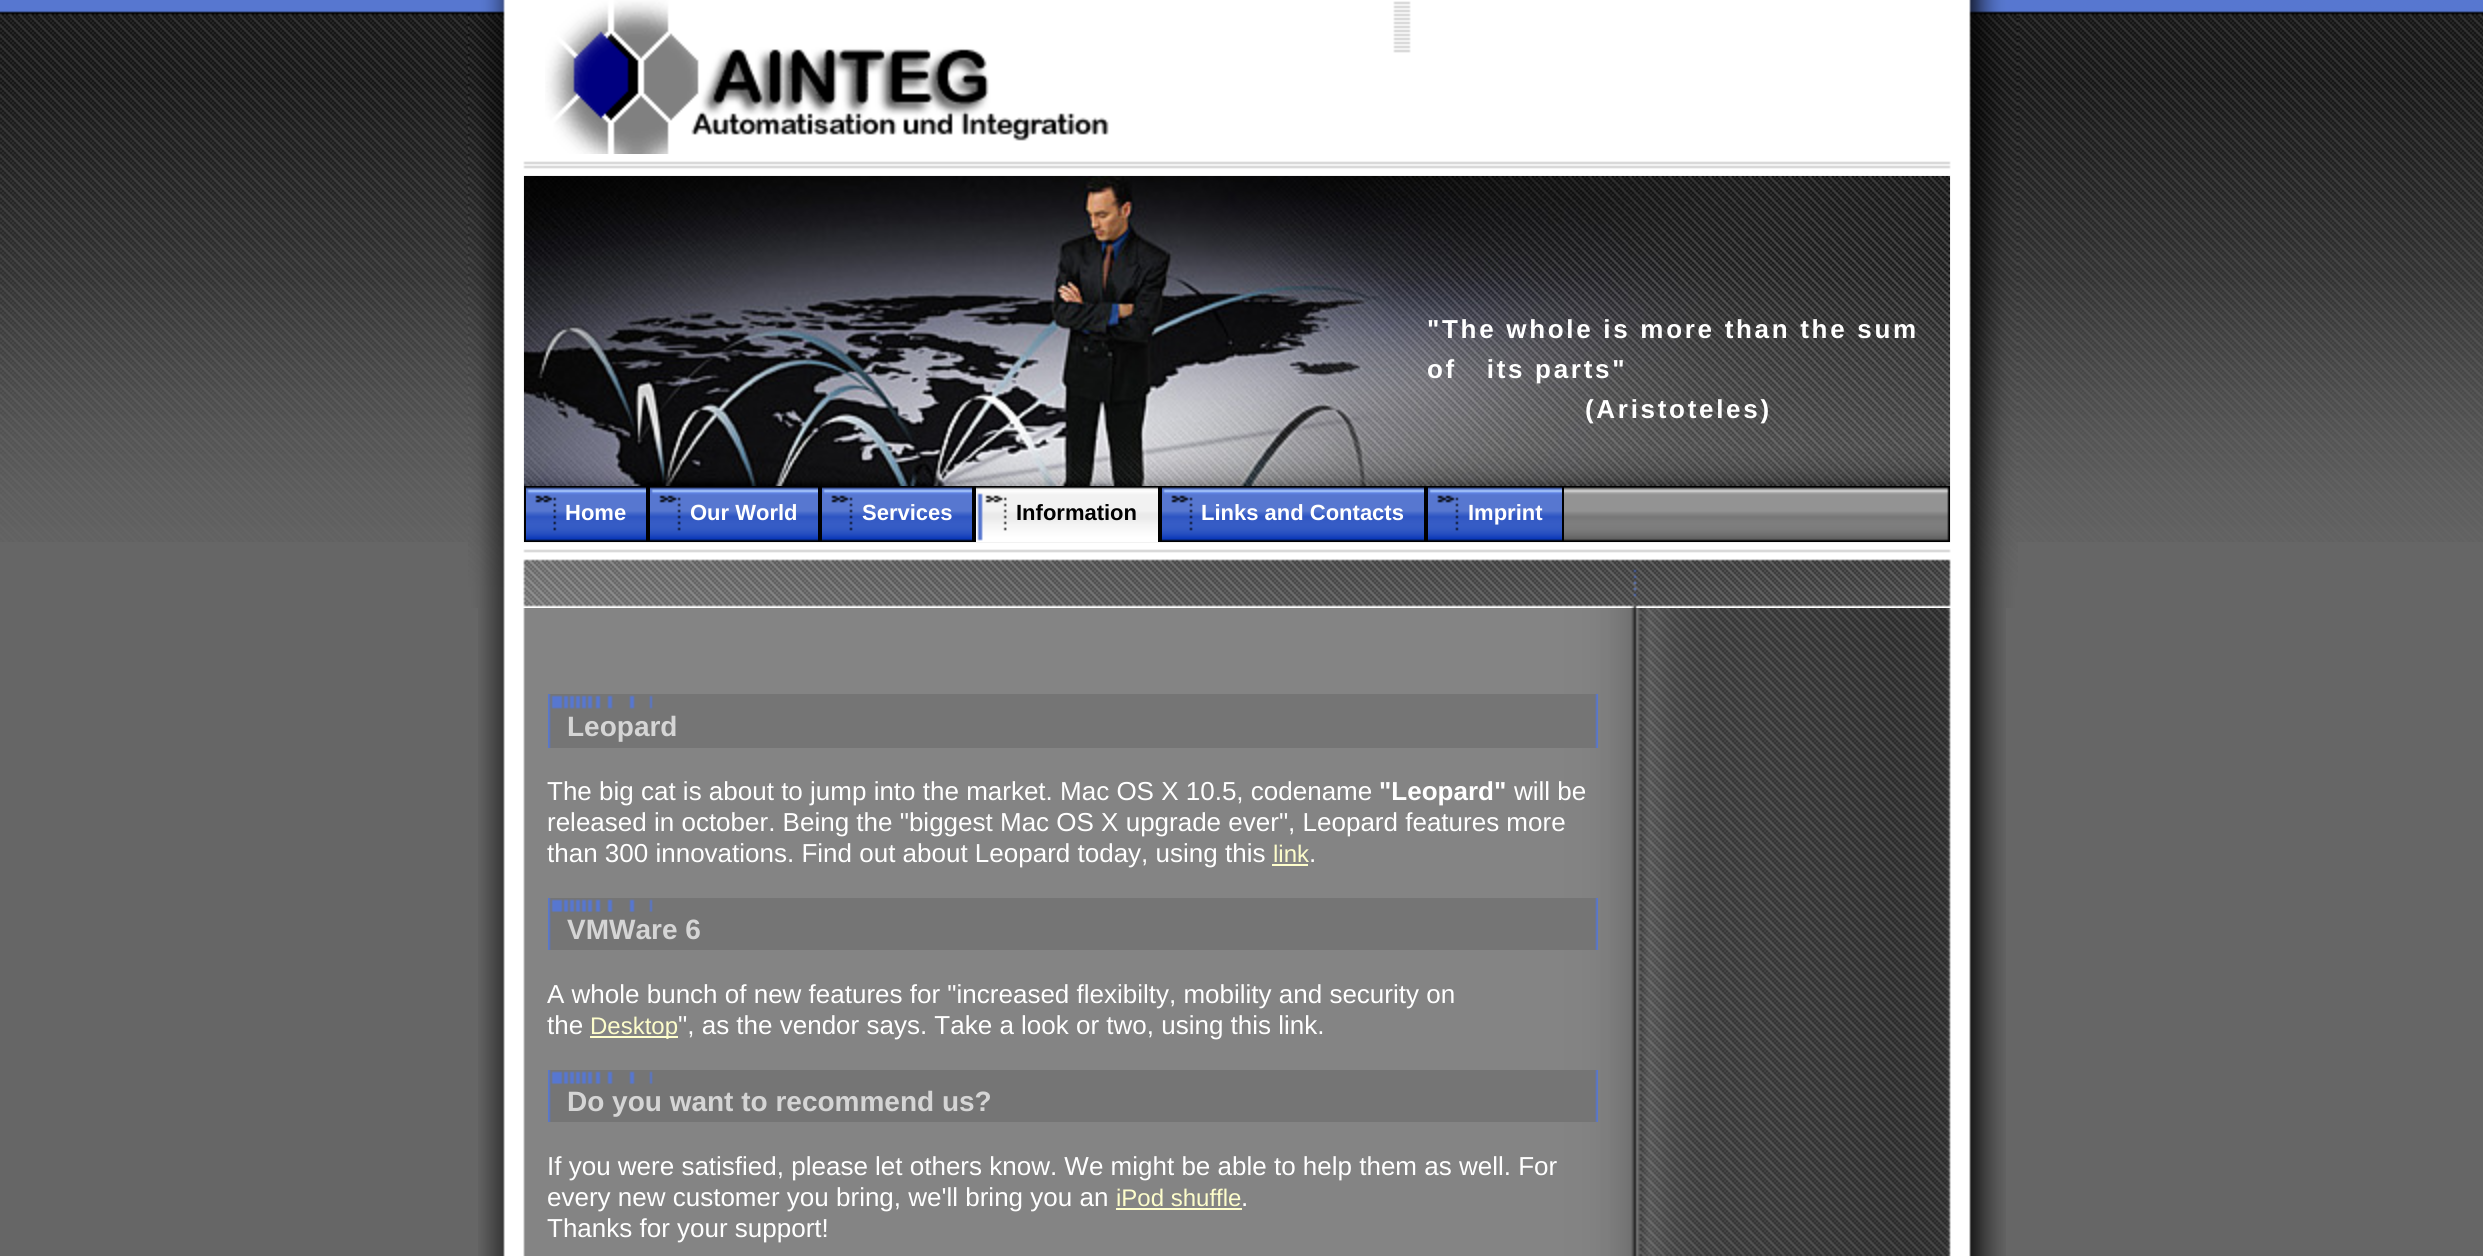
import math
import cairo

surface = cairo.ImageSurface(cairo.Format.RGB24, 2483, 1256)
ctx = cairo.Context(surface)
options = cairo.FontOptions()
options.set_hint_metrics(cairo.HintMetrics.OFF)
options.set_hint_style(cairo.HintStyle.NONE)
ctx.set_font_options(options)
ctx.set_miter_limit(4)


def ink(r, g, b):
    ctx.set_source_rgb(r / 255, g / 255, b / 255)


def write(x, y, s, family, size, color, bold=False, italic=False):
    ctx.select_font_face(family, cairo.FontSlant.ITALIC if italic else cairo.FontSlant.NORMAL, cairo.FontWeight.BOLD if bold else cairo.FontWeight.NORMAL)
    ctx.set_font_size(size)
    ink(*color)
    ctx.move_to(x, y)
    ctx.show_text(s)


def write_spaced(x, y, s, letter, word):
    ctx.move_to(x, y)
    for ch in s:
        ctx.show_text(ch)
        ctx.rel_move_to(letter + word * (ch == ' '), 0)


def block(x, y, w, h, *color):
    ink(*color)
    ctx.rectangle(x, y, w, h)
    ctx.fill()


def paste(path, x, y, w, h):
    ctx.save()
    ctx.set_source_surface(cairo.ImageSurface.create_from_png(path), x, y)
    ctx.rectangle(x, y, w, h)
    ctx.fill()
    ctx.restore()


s1 = dict(family="Liberation Sans", size=22, color=(255, 255, 255), bold=True)
s2 = dict(family="Liberation Sans", size=22, color=(0, 0, 0), bold=True)
s3 = dict(family="Liberation Sans", size=28, color=(213, 213, 213), bold=True)
s4 = dict(family="Liberation Sans", size=26, color=(255, 255, 255))
s5 = dict(family="Liberation Sans", size=26, color=(255, 255, 255), bold=True)
s6 = dict(family="Liberation Sans", size=24, color=(253, 253, 203))

ink(102, 102, 102)
ctx.paint()
paste("pic1.png", 0, 0, 2483, 542)
paste("pic2.png", 478, 608, 1528, 648)
paste("pic3.png", 468, 0, 1550, 608)
paste("pic4.png", 545, 0, 564, 154)
paste("pic5.png", 524, 176, 1426, 310)
ctx.select_font_face("Liberation Sans", cairo.FontSlant.NORMAL, cairo.FontWeight.BOLD)
ctx.set_font_size(26)
ink(255, 255, 255)
write_spaced(1427, 338, "\"The whole is more than the sum", 2.7, 0)
write_spaced(1427, 378, "of   its parts\"", 2.7, 0)
write_spaced(1585, 418, "(Aristoteles)", 2.7, 0)
paste("pic6.png", 526, 486, 1424, 56)
block(646, 486, 4, 56, 0, 0, 0)
block(524, 486, 2, 56, 0, 0, 0)
paste("pic7.png", 526, 487, 120, 54)
write(565, 520, "Home", **s1)
block(818, 486, 4, 56, 0, 0, 0)
paste("pic8.png", 650, 487, 168, 54)
write(690, 520, "Our World", **s1)
block(972, 486, 4, 56, 0, 0, 0)
paste("pic9.png", 822, 487, 150, 54)
write(862, 520, "Services", **s1)
block(1158, 486, 4, 56, 0, 0, 0)
paste("pic10.png", 976, 487, 182, 55)
write(1016, 520, "Information", **s2)
block(1424, 486, 4, 56, 0, 0, 0)
paste("pic11.png", 1162, 487, 262, 54)
write(1201, 520, "Links and Contacts", **s1)
block(1562, 486, 2, 56, 0, 0, 0)
paste("pic12.png", 1428, 487, 134, 54)
write(1468, 520, "Imprint", **s1)
paste("pic13.png", 548, 694, 1050, 54)
write(567, 736, "Leopard", **s3)
write(547, 800, "The big cat is about to jump into the market. Mac OS X 10.5, codename", **s4)
write(1379, 800, "\"Leopard\"", **s5)
write(1514, 800, "will be", **s4)
write(547, 831, "released in october. Being the \"biggest Mac OS X upgrade ever\", Leopard features more", **s4)
write(547, 862, "than 300 innovations. Find out about Leopard today, using this", **s4)
write(1273, 862, "link", **s6)
block(1272, 864, 36, 2, 255, 255, 204)
write(1309, 862, ".", **s4)
paste("pic14.png", 548, 898, 1050, 52)
write(567, 939, "VMWare 6", **s3)
write(547, 1003, "A whole bunch of new features for \"increased flexibilty, mobility and security on", **s4)
write(547, 1034, "the", **s4)
block(590, 1036, 88, 2, 255, 255, 204)
write(590, 1034, "Desktop", **s6)
write(678, 1034, "\", as the vendor says. Take a look or two, using this link.", **s4)
paste("pic14.png", 548, 1070, 1050, 52)
write(567, 1111, "Do you want to recommend us?", **s3)
write(547, 1175, "If you were satisfied, please let others know. We might be able to help them as well. For", **s4)
write(547, 1206, "every new customer you bring, we'll bring you an", **s4)
write(1116, 1206, "iPod shuffle", **s6)
block(1116, 1208, 126, 2, 255, 255, 204)
write(1241, 1206, ".", **s4)
write(547, 1237, "Thanks for your support!", **s4)
surface.write_to_png("screenshot.png")
